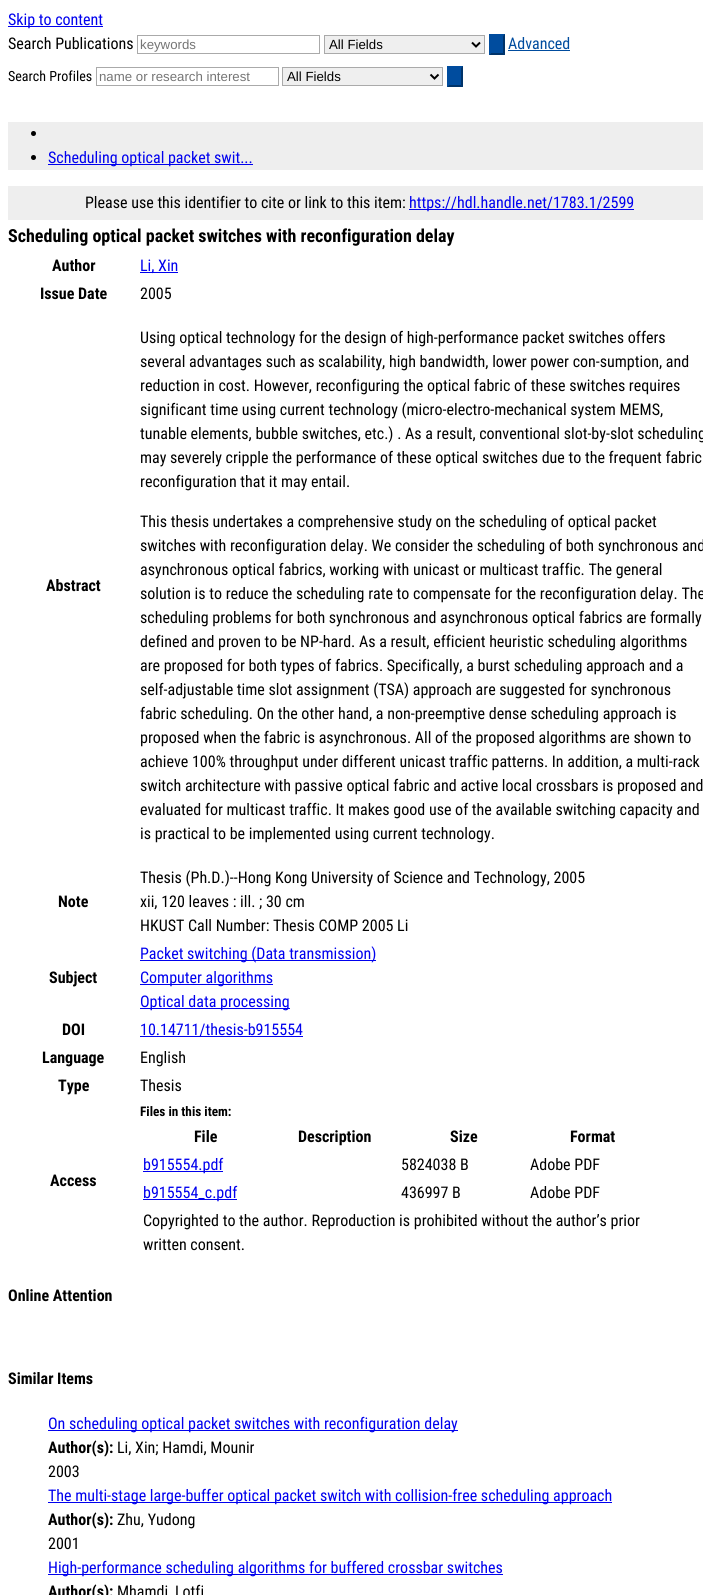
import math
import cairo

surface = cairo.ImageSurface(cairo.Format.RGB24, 703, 1595)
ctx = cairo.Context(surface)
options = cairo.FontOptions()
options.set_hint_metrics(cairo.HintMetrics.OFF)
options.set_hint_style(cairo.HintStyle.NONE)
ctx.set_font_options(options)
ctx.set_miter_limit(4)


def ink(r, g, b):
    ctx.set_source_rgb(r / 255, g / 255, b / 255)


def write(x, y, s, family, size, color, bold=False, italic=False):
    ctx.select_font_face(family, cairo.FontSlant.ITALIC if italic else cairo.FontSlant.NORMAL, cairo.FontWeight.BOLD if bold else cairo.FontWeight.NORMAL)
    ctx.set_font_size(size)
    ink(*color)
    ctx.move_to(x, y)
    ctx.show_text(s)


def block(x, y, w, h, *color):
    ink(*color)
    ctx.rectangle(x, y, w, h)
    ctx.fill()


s1 = dict(family="Roboto Condensed", size=16, color=(0, 0, 238))
s2 = dict(family="Roboto Condensed", size=16, color=(0, 0, 0))
s3 = dict(family="Liberation Sans", size=13.25, color=(117, 117, 117))
s4 = dict(family="Liberation Sans", size=13.25, color=(0, 0, 0))
s5 = dict(family="Roboto Condensed", size=16, color=(0, 76, 158))
s6 = dict(family="Roboto Condensed", size=14, color=(0, 0, 0))
s7 = dict(family="Roboto Condensed", size=18, color=(0, 0, 0), bold=True)
s8 = dict(family="Roboto Condensed", size=16, color=(0, 0, 0), bold=True)
s9 = dict(family="Roboto Condensed", size=13.25, color=(0, 0, 0), bold=True)

ink(255, 255, 255)
ctx.paint()
block(8, 26, 95, 1, 0, 0, 238)
write(8, 25, "Skip to content", **s1)
write(8, 49, "Search Publications", **s2)
ctx.rectangle(137.5, 35.5, 182, 18)
ink(170, 170, 170)
ctx.set_line_width(1)
ctx.stroke()
write(140, 49, "keywords", **s3)
ink(239, 239, 239)
ctx.rectangle(324.5, 35.5, 160, 18)
ctx.fill_preserve()
ink(170, 170, 170)
ctx.stroke()
ctx.new_path()
ctx.move_to(472, 42.5)
ctx.line_to(476, 46.5)
ctx.line_to(480, 42.5)
ink(0, 0, 0)
ctx.set_line_width(2)
ctx.stroke()
write(329, 49, "All Fields", **s4)
block(489, 34, 16, 21, 0, 76, 158)
ink(0, 51, 105)
ctx.new_path()
ctx.move_to(505, 34)
ctx.line_to(505, 55)
ctx.line_to(503, 53)
ctx.line_to(503, 36)
ctx.close_path()
ctx.fill()
ctx.new_path()
ctx.move_to(505, 55)
ctx.line_to(489, 55)
ctx.line_to(491, 53)
ctx.line_to(503, 53)
ctx.close_path()
ctx.fill()
ink(0, 76, 158)
ctx.new_path()
ctx.move_to(489, 55)
ctx.line_to(489, 34)
ctx.line_to(491, 36)
ctx.line_to(491, 53)
ctx.close_path()
ctx.fill()
write(508, 49, "Advanced", **s5)
block(508, 50, 62, 1, 0, 76, 158)
write(8, 81, "Search Profiles", **s6)
ctx.rectangle(96.5, 67.5, 182, 18)
ink(170, 170, 170)
ctx.set_line_width(1)
ctx.stroke()
write(99, 81, "name or research interest", **s3)
ink(239, 239, 239)
ctx.rectangle(282.5, 67.5, 160, 18)
ctx.fill_preserve()
ink(170, 170, 170)
ctx.stroke()
ctx.new_path()
ctx.move_to(430.5, 74.5)
ctx.line_to(434.5, 78.5)
ctx.line_to(438.5, 74.5)
ink(0, 0, 0)
ctx.set_line_width(2)
ctx.stroke()
write(287, 81, "All Fields", **s4)
block(447, 66, 16, 21, 0, 76, 158)
ink(0, 51, 105)
ctx.new_path()
ctx.move_to(463, 66)
ctx.line_to(463, 87)
ctx.line_to(461, 85)
ctx.line_to(461, 68)
ctx.close_path()
ctx.fill()
ctx.new_path()
ctx.move_to(463, 87)
ctx.line_to(447, 87)
ctx.line_to(449, 85)
ctx.line_to(461, 85)
ctx.close_path()
ctx.fill()
ink(0, 76, 158)
ctx.new_path()
ctx.move_to(447, 87)
ctx.line_to(447, 66)
ctx.line_to(449, 68)
ctx.line_to(449, 85)
ctx.close_path()
ctx.fill()
block(8, 122, 695, 48, 238, 238, 238)
ink(0, 0, 0)
ctx.arc(33.5, 133.5, 2.5, 0, 2 * math.pi)
ctx.fill()
ctx.arc(33.5, 157.5, 2.5, 0, 2 * math.pi)
ctx.fill()
block(48, 164, 205, 1, 0, 0, 238)
write(48, 163, "Scheduling optical packet swit...", **s1)
block(8, 186, 695, 34, 238, 238, 238)
write(85, 208, "Please use this identifier to cite or link to this item:", **s2)
block(409, 209, 225, 1, 0, 0, 238)
write(409, 208, "https://hdl.handle.net/1783.1/2599", **s1)
write(8, 242, "Scheduling optical packet switches with reconfiguration delay", **s7)
write(52, 271, "Author", **s8)
block(140, 272, 38, 1, 0, 0, 238)
write(140, 271, "Li, Xin", **s1)
write(40, 299, "Issue Date", **s8)
write(140, 299, "2005", **s2)
write(46, 591, "Abstract", **s8)
write(140, 343, "Using optical technology for the design of high-performance packet switches offers", **s2)
write(140, 367, "several advantages such as scalability, high bandwidth, lower power con-sumption, and", **s2)
write(140, 391, "reduction in cost. However, reconfiguring the optical fabric of these switches requires", **s2)
write(140, 415, "significant time using current technology (micro-electro-mechanical system MEMS,", **s2)
write(140, 439, "tunable elements, bubble switches, etc.) . As a result, conventional slot-by-slot scheduling", **s2)
write(140, 463, "may severely cripple the performance of these optical switches due to the frequent fabric", **s2)
write(140, 487, "reconfiguration that it may entail.", **s2)
write(140, 527, "This thesis undertakes a comprehensive study on the scheduling of optical packet", **s2)
write(140, 551, "switches with reconfiguration delay. We consider the scheduling of both synchronous and", **s2)
write(140, 575, "asynchronous optical fabrics, working with unicast or multicast traffic. The general", **s2)
write(140, 599, "solution is to reduce the scheduling rate to compensate for the reconfiguration delay. The", **s2)
write(140, 623, "scheduling problems for both synchronous and asynchronous optical fabrics are formally", **s2)
write(140, 647, "defined and proven to be NP-hard. As a result, efficient heuristic scheduling algorithms", **s2)
write(140, 671, "are proposed for both types of fabrics. Specifically, a burst scheduling approach and a", **s2)
write(140, 695, "self-adjustable time slot assignment (TSA) approach are suggested for synchronous", **s2)
write(140, 719, "fabric scheduling. On the other hand, a non-preemptive dense scheduling approach is", **s2)
write(140, 743, "proposed when the fabric is asynchronous. All of the proposed algorithms are shown to", **s2)
write(140, 767, "achieve 100% throughput under different unicast traffic patterns. In addition, a multi-rack", **s2)
write(140, 791, "switch architecture with passive optical fabric and active local crossbars is proposed and", **s2)
write(140, 815, "evaluated for multicast traffic. It makes good use of the available switching capacity and", **s2)
write(140, 839, "is practical to be implemented using current technology.", **s2)
write(58, 907, "Note", **s8)
write(140, 883, "Thesis (Ph.D.)--Hong Kong University of Science and Technology, 2005", **s2)
write(140, 907, "xii, 120 leaves : ill. ; 30 cm", **s2)
write(140, 931, "HKUST Call Number: Thesis COMP 2005 Li", **s2)
write(49, 983, "Subject", **s8)
block(140, 960, 236, 1, 0, 0, 238)
write(140, 959, "Packet switching (Data transmission)", **s1)
block(140, 984, 133, 1, 0, 0, 238)
write(140, 983, "Computer algorithms", **s1)
block(140, 1008, 150, 1, 0, 0, 238)
write(140, 1007, "Optical data processing", **s1)
write(62, 1035, "DOI", **s8)
write(140, 1035, "10.14711/thesis-b915554", **s1)
block(140, 1036, 163, 1, 0, 0, 238)
write(42, 1063, "Language", **s8)
write(140, 1063, "English", **s2)
write(58, 1091, "Type", **s8)
write(140, 1091, "Thesis", **s2)
write(50, 1186, "Access", **s8)
write(140, 1116, "Files in this item:", **s9)
write(194, 1142, "File", **s8)
write(298, 1142, "Description", **s8)
write(450, 1142, "Size", **s8)
write(570, 1142, "Format", **s8)
block(143, 1171, 80, 1, 0, 0, 238)
write(143, 1170, "b915554.pdf", **s1)
write(401, 1170, "5824038 B", **s2)
write(530, 1170, "Adobe PDF", **s2)
block(143, 1199, 94, 1, 0, 0, 238)
write(143, 1198, "b915554_c.pdf", **s1)
write(401, 1198, "436997 B", **s2)
write(530, 1198, "Adobe PDF", **s2)
write(143, 1226, "Copyrighted to the author. Reproduction is prohibited without the author’s prior", **s2)
write(143, 1250, "written consent.", **s2)
write(8, 1301, "Online Attention", **s8)
write(8, 1384, "Similar Items", **s8)
block(48, 1430, 410, 1, 0, 0, 238)
write(48, 1429, "On scheduling optical packet switches with reconfiguration delay", **s1)
write(48, 1453, "Author(s):", **s8)
write(117, 1453, "Li, Xin; Hamdi, Mounir", **s2)
write(48, 1477, "2003", **s2)
block(48, 1502, 564, 1, 0, 0, 238)
write(48, 1501, "The multi-stage large-buffer optical packet switch with collision-free scheduling approach", **s1)
write(48, 1525, "Author(s):", **s8)
write(117, 1525, "Zhu, Yudong", **s2)
write(48, 1549, "2001", **s2)
block(48, 1574, 455, 1, 0, 0, 238)
write(48, 1573, "High-performance scheduling algorithms for buffered crossbar switches", **s1)
write(48, 1597, "Author(s):", **s8)
write(117, 1597, "Mhamdi, Lotfi", **s2)
surface.write_to_png("screenshot.png")
